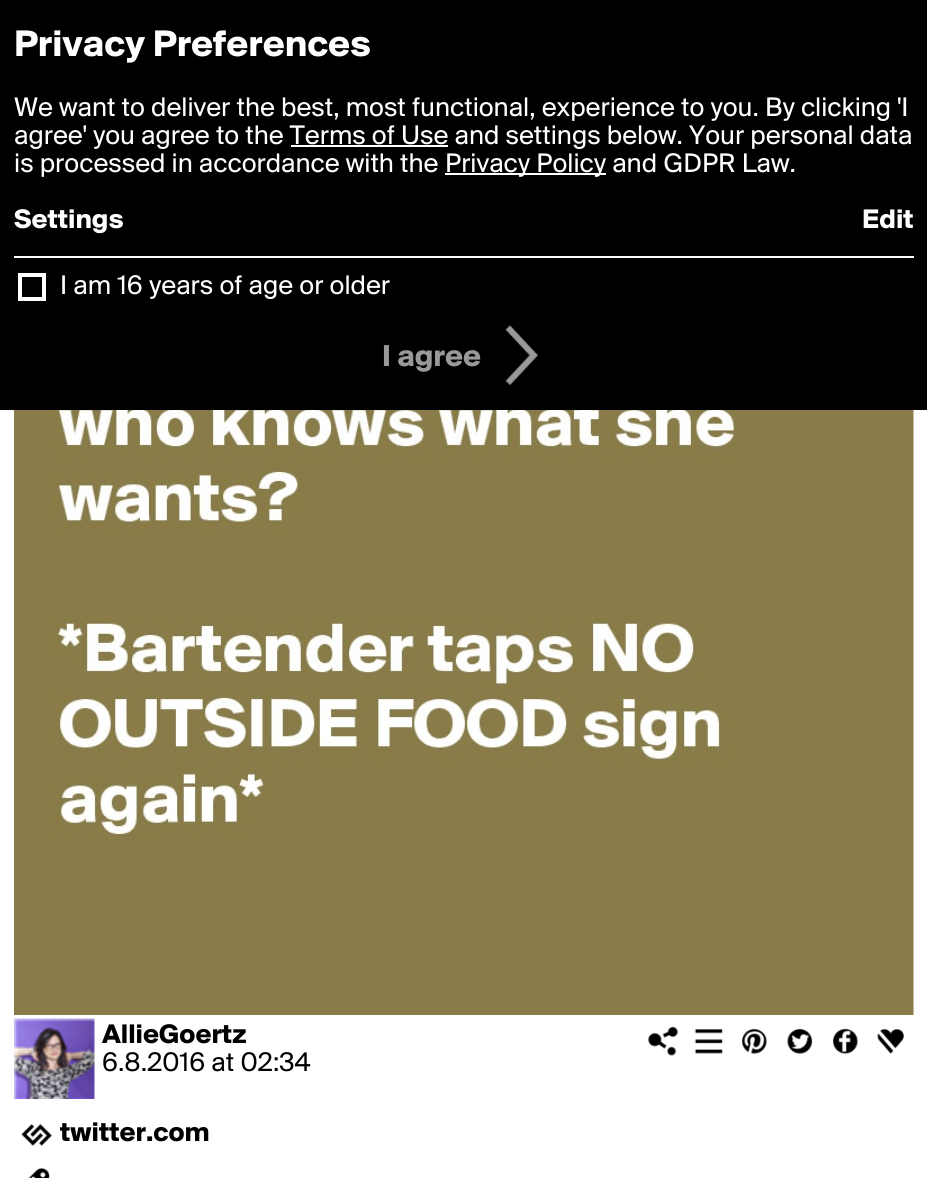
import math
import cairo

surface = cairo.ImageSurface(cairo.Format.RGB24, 927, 1178)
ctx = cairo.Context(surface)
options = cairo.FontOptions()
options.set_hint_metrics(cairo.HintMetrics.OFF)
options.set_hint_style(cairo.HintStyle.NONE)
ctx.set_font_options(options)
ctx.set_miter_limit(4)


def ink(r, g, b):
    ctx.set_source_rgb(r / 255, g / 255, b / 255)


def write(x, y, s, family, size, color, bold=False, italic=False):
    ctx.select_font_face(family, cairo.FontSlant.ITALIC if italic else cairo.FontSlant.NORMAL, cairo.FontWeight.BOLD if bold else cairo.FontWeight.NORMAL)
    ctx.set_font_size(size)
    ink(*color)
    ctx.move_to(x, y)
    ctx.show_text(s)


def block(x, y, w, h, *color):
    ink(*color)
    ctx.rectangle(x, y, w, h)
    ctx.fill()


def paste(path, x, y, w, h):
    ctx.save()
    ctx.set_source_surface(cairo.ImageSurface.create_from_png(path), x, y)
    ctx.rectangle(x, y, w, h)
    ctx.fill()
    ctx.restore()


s1 = dict(family="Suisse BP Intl", size=38.5, color=(255, 255, 255), bold=True)
s2 = dict(family="Suisse BP Intl", size=28, color=(255, 255, 255))
s3 = dict(family="Suisse BP Intl", size=28, color=(255, 255, 255), bold=True)
s4 = dict(family="Suisse BP Intl", size=31.5, color=(153, 153, 153), bold=True)
s5 = dict(family="Suisse BP Intl", size=28, color=(0, 0, 0), bold=True)
s6 = dict(family="Suisse BP Intl", size=28, color=(0, 0, 0))

ink(255, 255, 255)
ctx.paint()
block(0, 0, 927, 410, 0, 0, 0)
write(14, 56, "Privacy Preferences", **s1)
write(14, 116, "We want to deliver the best, most functional, experience to you. By clicking 'I", **s2)
write(14, 144, "agree' you agree to the Terms of Use and settings below. Your personal data", **s2)
block(291, 145, 157, 2, 255, 255, 255)
write(14, 172, "is processed in accordance with the", **s2)
block(445, 173, 161, 2, 255, 255, 255)
write(445, 172, "Privacy Policy and GDPR Law.", **s2)
write(14, 228, "Settings", **s3)
write(862, 228, "Edit", **s3)
block(14, 256, 900, 2, 255, 255, 255)
ctx.rectangle(20, 275, 24, 24)
ctx.set_line_width(4)
ctx.stroke()
write(60, 294, "I am 16 years of age or older", **s2)
write(382, 366, "I agree", **s4)
paste("pic1.png", 505, 325, 34, 60)
paste("pic2.png", 14, 410, 900, 605)
paste("pic3.png", 14, 1018, 81, 81)
write(102, 1043, "AllieGoertz", **s5)
write(102, 1071, "6.8.2016 at 02:34", **s6)
paste("pic4.png", 648, 1026, 31, 30)
paste("pic5.png", 694, 1029, 29, 25)
paste("pic6.png", 741, 1028, 26, 26)
paste("pic7.png", 787, 1028, 26, 26)
paste("pic8.png", 832, 1028, 26, 26)
paste("pic9.png", 877, 1029, 27, 25)
paste("pic10.png", 21, 1123, 31, 23)
write(60, 1141, "twitter.com", **s5)
paste("pic11.png", 28, 1168, 22, 10)
surface.write_to_png("screenshot.png")
